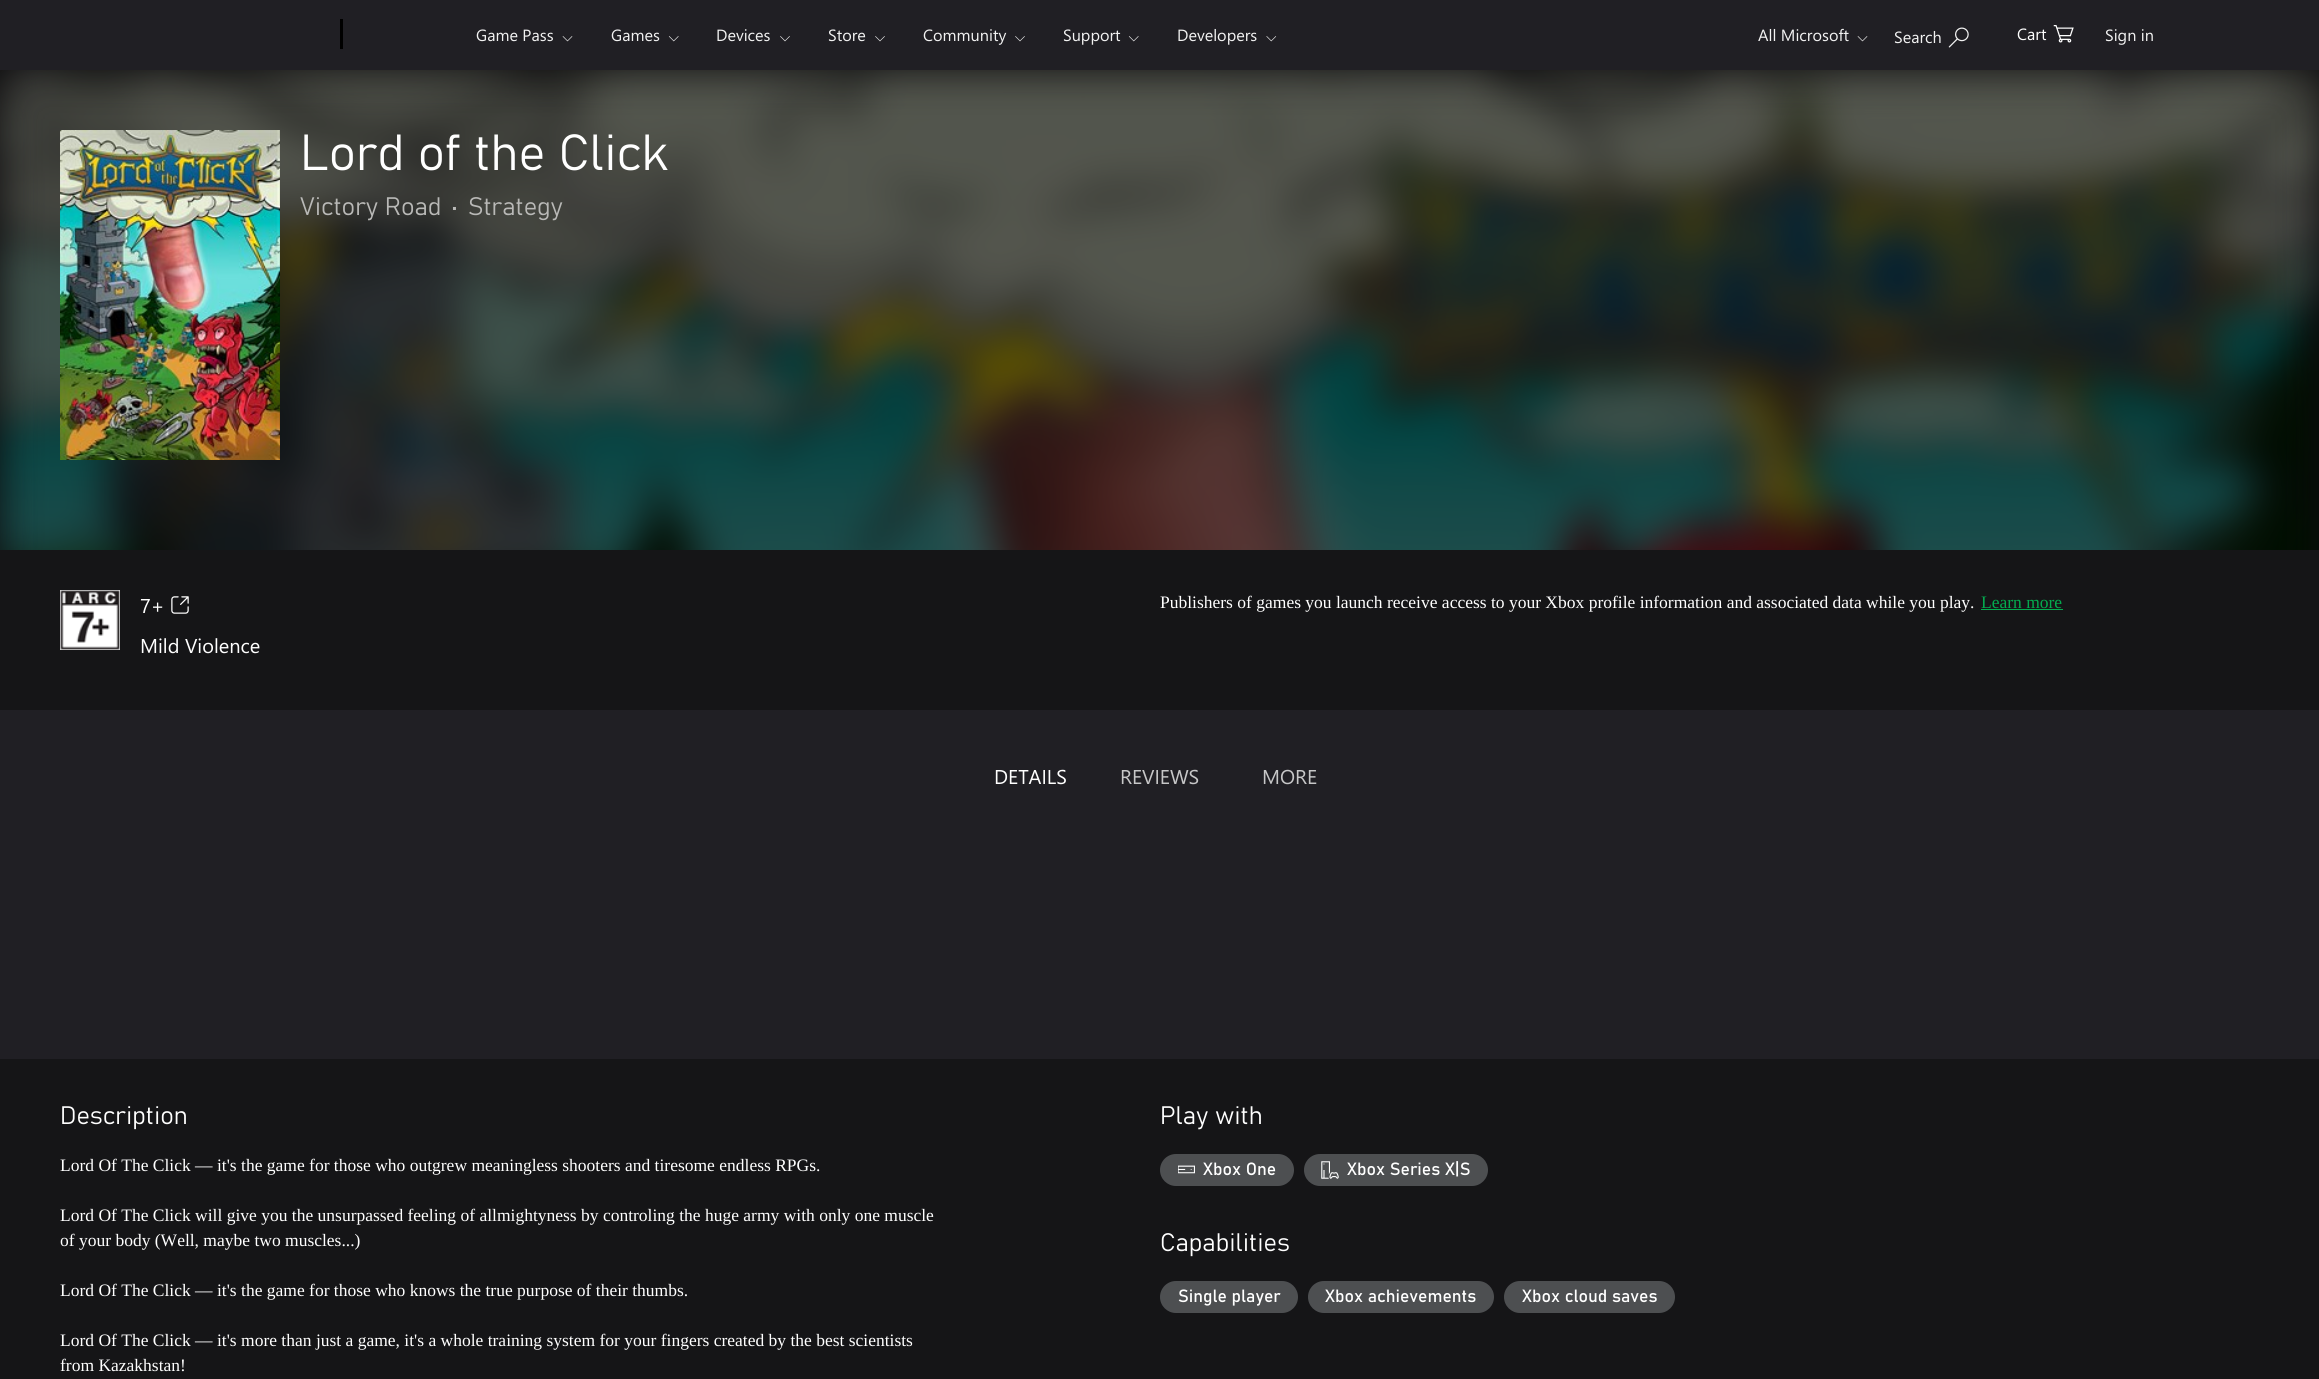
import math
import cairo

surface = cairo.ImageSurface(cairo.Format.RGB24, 2319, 1379)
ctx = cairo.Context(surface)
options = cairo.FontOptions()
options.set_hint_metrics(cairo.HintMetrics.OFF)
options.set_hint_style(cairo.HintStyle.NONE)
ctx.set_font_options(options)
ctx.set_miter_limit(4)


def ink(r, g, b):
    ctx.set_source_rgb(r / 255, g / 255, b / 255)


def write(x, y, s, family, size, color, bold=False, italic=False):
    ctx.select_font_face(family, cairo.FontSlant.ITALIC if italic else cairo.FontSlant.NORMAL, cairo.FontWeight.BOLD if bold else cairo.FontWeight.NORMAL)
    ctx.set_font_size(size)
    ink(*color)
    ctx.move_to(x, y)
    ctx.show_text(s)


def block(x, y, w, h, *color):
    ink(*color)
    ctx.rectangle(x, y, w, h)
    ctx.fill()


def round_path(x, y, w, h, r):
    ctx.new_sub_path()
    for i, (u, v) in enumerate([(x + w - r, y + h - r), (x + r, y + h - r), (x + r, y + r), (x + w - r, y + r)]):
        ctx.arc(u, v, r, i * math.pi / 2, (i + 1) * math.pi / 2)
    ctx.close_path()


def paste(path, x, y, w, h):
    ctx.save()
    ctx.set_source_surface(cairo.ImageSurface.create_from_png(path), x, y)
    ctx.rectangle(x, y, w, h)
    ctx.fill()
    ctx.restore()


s1 = dict(family="Segoe UI", size=16.25, color=(242, 242, 242))
s2 = dict(family="Segoe UI", size=16.25, color=(255, 255, 255))
s3 = dict(family="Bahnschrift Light", size=50, color=(255, 255, 255))
s4 = dict(family="Bahnschrift Light", size=25, color=(185, 185, 183))
s5 = dict(family="Segoe UI", size=20, color=(255, 255, 255))
s6 = dict(family="Liberation Serif", size=17.5, color=(255, 255, 255))
s7 = dict(family="Liberation Serif", size=17.5, color=(4, 171, 79))
s8 = dict(family="Segoe UI", size=20, color=(199, 199, 200))
s9 = dict(family="Bahnschrift Light", size=25, color=(255, 255, 255))
s10 = dict(family="Bahnschrift", size=17.5, color=(255, 255, 255))

ink(32, 31, 36)
ctx.paint()
block(0, 70, 2319, 480, 12, 11, 13)
block(340, 19, 3, 30, 0, 0, 0)
write(476, 41, "Game Pass", **s1)
paste("pic1.png", 562, 36, 11, 6)
write(611, 41, "Games", **s1)
paste("pic2.png", 668, 36, 11, 6)
write(716, 41, "Devices", **s1)
paste("pic3.png", 780, 36, 10, 6)
write(828, 41, "Store", **s1)
paste("pic3.png", 875, 36, 10, 6)
write(923, 41, "Community", **s1)
paste("pic3.png", 1015, 36, 10, 6)
write(1063, 41, "Support", **s1)
paste("pic2.png", 1128, 36, 11, 6)
write(1177, 41, "Developers", **s1)
paste("pic4.png", 1266, 36, 11, 6)
write(1758, 41, "All Microsoft", **s1)
paste("pic1.png", 1857, 36, 11, 6)
write(1894, 43, "Search", **s1)
paste("pic5.png", 1948, 27, 21, 21)
write(2017, 40, "Cart", **s2)
paste("pic6.png", 2053, 25, 21, 18)
write(2105, 41, "Sign in", **s1)
paste("pic7.png", 0, 70, 2319, 480)
paste("pic8.png", 60, 130, 220, 330)
write(300, 170, "Lord of the Сlick", **s3)
write(300, 215, "Victory Road", **s4)
write(451, 215, "•", **s4)
write(468, 215, "Strategy", **s4)
block(0, 550, 2319, 160, 21, 21, 23)
paste("pic9.png", 60, 590, 60, 60)
write(140, 613, "7+", **s5)
paste("pic10.png", 171, 596, 18, 18)
write(140, 653, "Mild Violence", **s5)
write(1160, 608, "Publishers of games you launch receive access to your Xbox profile information and associated data while you play.", **s6)
write(1981, 608, "Learn more", **s7)
block(1981, 609, 82, 1, 4, 171, 79)
write(994, 784, "DETAILS", **s5)
write(1120, 784, "REVIEWS", **s8)
write(1262, 784, "MORE", **s8)
block(0, 1059, 2319, 320, 21, 21, 23)
write(60, 1124, "Description", **s9)
write(60, 1171, "Lord Of The Click — it's the game for those who outgrew meaningless shooters and tiresome endless RPGs.", **s6)
write(60, 1221, "Lord Of The Click will give you the unsurpassed feeling of allmightyness by controling the huge army with only one muscle", **s6)
write(60, 1246, "of your body (Well, maybe two muscles...)", **s6)
write(60, 1296, "Lord Of The Click — it's the game for those who knows the true purpose of their thumbs.", **s6)
write(60, 1346, "Lord Of The Click — it's more than just a game, it's a whole training system for your fingers created by the best scientists", **s6)
write(60, 1371, "from Kazakhstan!", **s6)
write(1160, 1124, "Play with", **s9)
ink(77, 79, 81)
round_path(1160, 1154, 134, 32, 16)
ctx.fill()
paste("pic11.png", 1178, 1165, 17, 9)
write(1203, 1175, "Xbox One", **s10)
ink(77, 79, 81)
round_path(1304, 1154, 184, 32, 16)
ctx.fill()
paste("pic12.png", 1321, 1161, 18, 18)
write(1347, 1175, "Xbox Series X|S", **s10)
write(1160, 1251, "Capabilities", **s9)
ink(77, 79, 81)
round_path(1160, 1281, 138, 32, 16)
ctx.fill()
write(1178, 1302, "Single player", **s10)
ink(77, 79, 81)
round_path(1308, 1281, 186, 32, 16)
ctx.fill()
write(1325, 1302, "Xbox achievements", **s10)
ink(77, 79, 81)
round_path(1504, 1281, 171, 32, 16)
ctx.fill()
write(1522, 1302, "Xbox cloud saves", **s10)
surface.write_to_png("screenshot.png")
